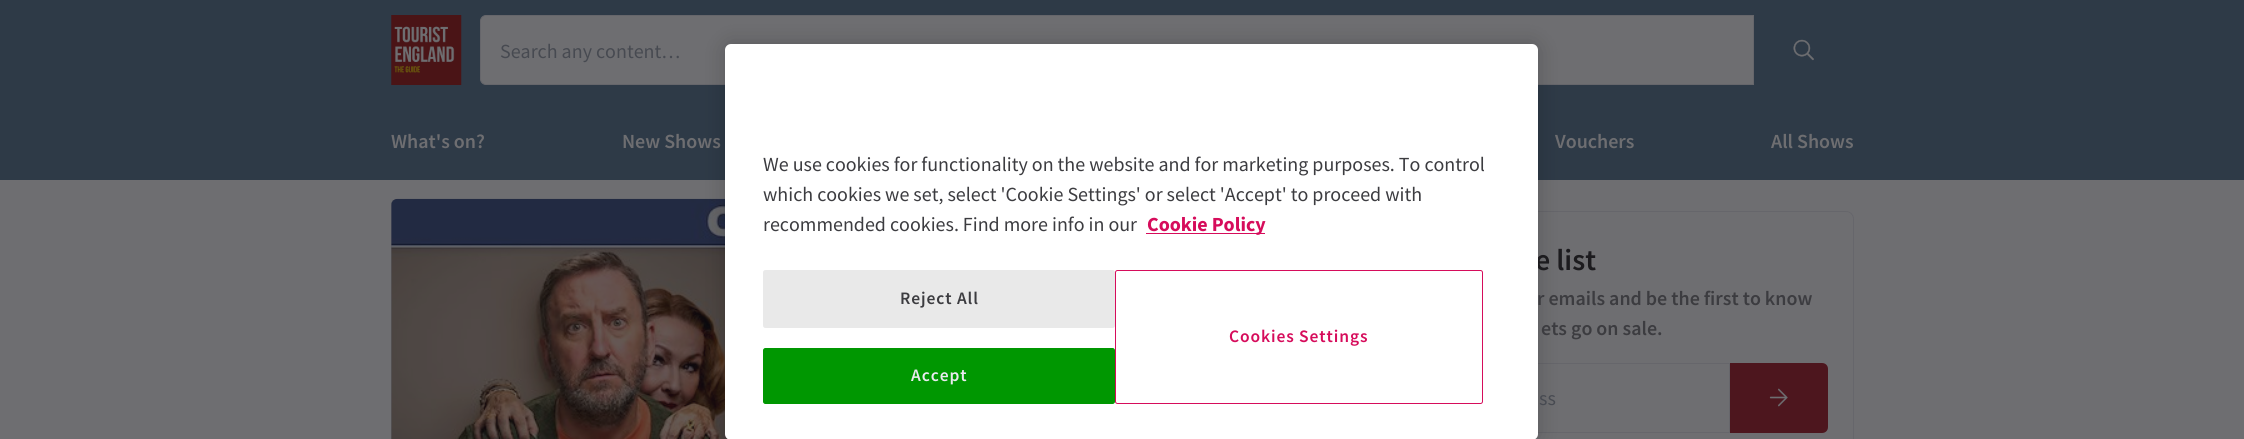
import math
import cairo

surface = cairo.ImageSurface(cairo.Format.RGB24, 2244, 439)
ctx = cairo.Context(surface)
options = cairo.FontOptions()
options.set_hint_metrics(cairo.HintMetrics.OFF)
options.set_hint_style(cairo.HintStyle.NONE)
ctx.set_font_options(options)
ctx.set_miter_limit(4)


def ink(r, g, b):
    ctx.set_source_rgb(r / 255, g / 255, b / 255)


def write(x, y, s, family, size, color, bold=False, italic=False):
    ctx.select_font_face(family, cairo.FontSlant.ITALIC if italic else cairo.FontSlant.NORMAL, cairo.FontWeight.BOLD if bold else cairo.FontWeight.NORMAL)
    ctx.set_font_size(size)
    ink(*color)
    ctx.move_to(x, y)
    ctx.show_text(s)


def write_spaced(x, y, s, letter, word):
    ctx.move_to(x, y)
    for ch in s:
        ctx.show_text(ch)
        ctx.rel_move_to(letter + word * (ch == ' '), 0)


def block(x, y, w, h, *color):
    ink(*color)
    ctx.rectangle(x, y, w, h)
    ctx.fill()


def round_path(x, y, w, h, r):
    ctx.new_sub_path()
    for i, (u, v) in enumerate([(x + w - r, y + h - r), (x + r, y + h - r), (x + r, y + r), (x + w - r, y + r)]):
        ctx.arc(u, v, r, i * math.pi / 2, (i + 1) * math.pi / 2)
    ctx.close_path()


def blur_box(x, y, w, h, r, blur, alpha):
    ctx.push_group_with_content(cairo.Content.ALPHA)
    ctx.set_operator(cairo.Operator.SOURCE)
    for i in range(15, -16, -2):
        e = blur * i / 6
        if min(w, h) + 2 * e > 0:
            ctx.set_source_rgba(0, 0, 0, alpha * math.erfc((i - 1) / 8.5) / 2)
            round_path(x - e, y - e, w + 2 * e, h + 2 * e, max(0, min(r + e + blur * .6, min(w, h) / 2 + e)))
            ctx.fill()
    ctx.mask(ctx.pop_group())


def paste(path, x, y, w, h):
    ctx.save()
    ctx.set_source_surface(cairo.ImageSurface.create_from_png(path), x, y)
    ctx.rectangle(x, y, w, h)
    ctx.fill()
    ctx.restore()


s1 = dict(family="Source Sans Pro", size=20, color=(71, 74, 81))
s2 = dict(family="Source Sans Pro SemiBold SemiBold", size=20, color=(110, 110, 113))
s3 = dict(family="Source Sans Pro SemiBold SemiBold", size=30, color=(28, 27, 30))
s4 = dict(family="Source Sans Pro SemiBold SemiBold", size=20, color=(60, 60, 64))
s5 = dict(family="Source Sans Pro", size=20, color=(60, 60, 64))
s6 = dict(family="Source Sans Pro", size=20, color=(214, 12, 91), bold=True)

ink(110, 110, 113)
ctx.paint()
block(0, 0, 2244, 180, 46, 58, 71)
paste("pic1.png", 391, 15, 71, 70)
ink(110, 110, 113)
ctx.new_path()
ctx.move_to(486, 15.5)
ctx.line_to(1753.5, 15.5)
ctx.line_to(1753.5, 84.5)
ctx.line_to(486, 84.5)
ctx.curve_to(483, 84.5, 480.5, 82, 480.5, 79)
ctx.line_to(480.5, 21)
ctx.curve_to(480.5, 18, 483, 15.5, 486, 15.5)
ctx.close_path()
ctx.fill_preserve()
ink(102, 102, 107)
ctx.set_line_width(1)
ctx.stroke()
write(500, 58, "Search any content…", **s1)
paste("pic2.png", 1793, 39, 21, 22)
write(391, 148, "What's on?", **s2)
write(622, 148, "New Shows", **s2)
write(1555, 148, "Vouchers", **s2)
write(1771, 148, "All Shows", **s2)
ink(102, 102, 107)
ctx.new_path()
ctx.move_to(397, 199)
ctx.line_to(1354, 199)
ctx.curve_to(1357.5, 199, 1360, 201.5, 1360, 205)
ctx.line_to(1360, 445)
ctx.line_to(391, 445)
ctx.line_to(391, 205)
ctx.curve_to(391, 201.5, 393.5, 199, 397, 199)
ctx.close_path()
ctx.fill()
paste("pic3.png", 391, 198, 337, 241)
ctx.set_source_rgba(0.11, 0.106, 0.118, 0.1)
round_path(391, 199, 969, 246, 6)
ctx.fill()
round_path(1391.5, 211.5, 462, 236, 7.5)
ink(102, 102, 107)
ctx.stroke()
ctx.rectangle(1418.5, 363.5, 311, 69)
ctx.stroke()
ink(0, 0, 0)
blur_box(725, 44, 813, 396, 6, 11, 0.2)
write(1535, 270, "e list", **s3)
write(1537, 305, "r emails and be the first to know", **s4)
ink(255, 255, 255)
round_path(725, 44, 813, 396, 6)
ctx.fill()
write(763, 171, "We use cookies for functionality on the website and for marketing purposes. To control", **s5)
write(763, 201, "which cookies we set, select 'Cookie Settings' or select 'Accept' to proceed with", **s5)
write(763, 231, "recommended cookies. Find more info in our", **s5)
block(1146, 233, 119, 1, 214, 12, 91)
write(1147, 231, "Cookie Policy", **s6)
ink(233, 233, 233)
round_path(763.5, 270.5, 351, 57, 2)
ctx.fill_preserve()
ctx.stroke()
ctx.select_font_face("Source Sans Pro SemiBold SemiBold")
ctx.set_font_size(17.5)
ink(60, 60, 64)
write_spaced(900, 304, "Reject All", 0.9, 0)
ink(0, 151, 1)
round_path(763.5, 348.5, 351, 55, 2)
ctx.fill_preserve()
ctx.stroke()
ink(234, 234, 240)
write_spaced(911, 381, "Accept", 0.9, 0)
round_path(1115.5, 270.5, 367, 133, 2)
ink(214, 12, 91)
ctx.stroke()
write_spaced(1229, 342, "Cookies Settings", 0.9, 0)
write(1541, 335, "ets go on sale.", **s4)
write(1539, 405, "ss", **s1)
ink(77, 22, 30)
ctx.new_path()
ctx.move_to(1730, 363)
ctx.line_to(1822, 363)
ctx.curve_to(1825.5, 363, 1828, 365.5, 1828, 369)
ctx.line_to(1828, 427)
ctx.curve_to(1828, 430.5, 1825.5, 433, 1822, 433)
ctx.line_to(1730, 433)
ctx.close_path()
ctx.fill()
paste("pic4.png", 1769, 388, 19, 19)
surface.write_to_png("screenshot.png")
